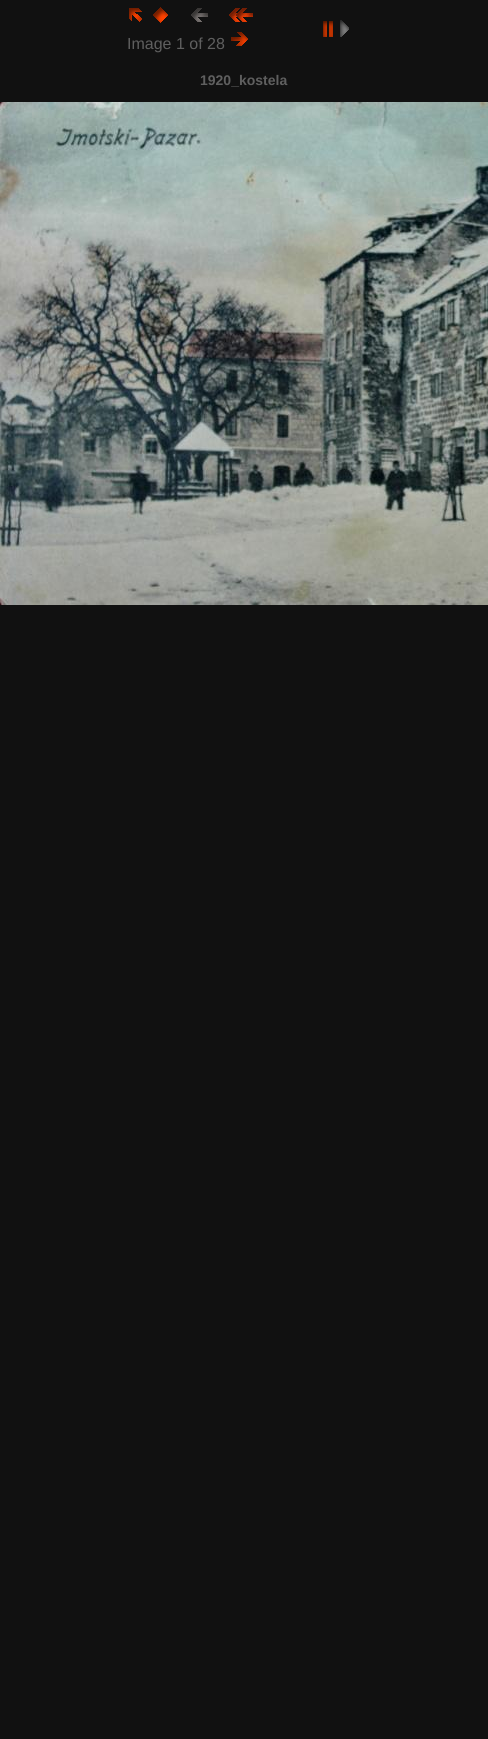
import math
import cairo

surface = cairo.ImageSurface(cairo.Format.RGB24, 488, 1739)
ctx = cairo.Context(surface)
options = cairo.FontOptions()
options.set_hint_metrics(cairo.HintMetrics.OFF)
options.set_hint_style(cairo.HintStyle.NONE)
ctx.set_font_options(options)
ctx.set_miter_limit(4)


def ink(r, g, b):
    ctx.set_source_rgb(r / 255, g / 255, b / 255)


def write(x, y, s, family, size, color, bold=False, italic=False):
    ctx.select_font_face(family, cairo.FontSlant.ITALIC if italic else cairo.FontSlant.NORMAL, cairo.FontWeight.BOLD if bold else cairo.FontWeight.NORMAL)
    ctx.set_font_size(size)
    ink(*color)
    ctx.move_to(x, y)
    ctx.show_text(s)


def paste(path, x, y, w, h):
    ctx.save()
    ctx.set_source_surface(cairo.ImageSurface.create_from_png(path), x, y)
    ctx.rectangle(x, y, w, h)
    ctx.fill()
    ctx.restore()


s1 = dict(family="Liberation Sans", size=16, color=(95, 95, 95))
s2 = dict(family="Liberation Sans", size=14, color=(95, 95, 95), bold=True)

ink(17, 17, 17)
ctx.paint()
paste("pic1.png", 323, 20, 26, 17)
paste("pic2.png", 129, 8, 13, 14)
paste("pic3.png", 153, 7, 15, 16)
paste("pic4.png", 191, 8, 17, 14)
paste("pic5.png", 229, 8, 24, 14)
write(127, 49, "Image 1 of 28", **s1)
paste("pic6.png", 231, 32, 17, 14)
write(200, 85, "1920_kostela", **s2)
paste("pic7.png", 0, 102, 488, 503)
surface.write_to_png("screenshot.png")
